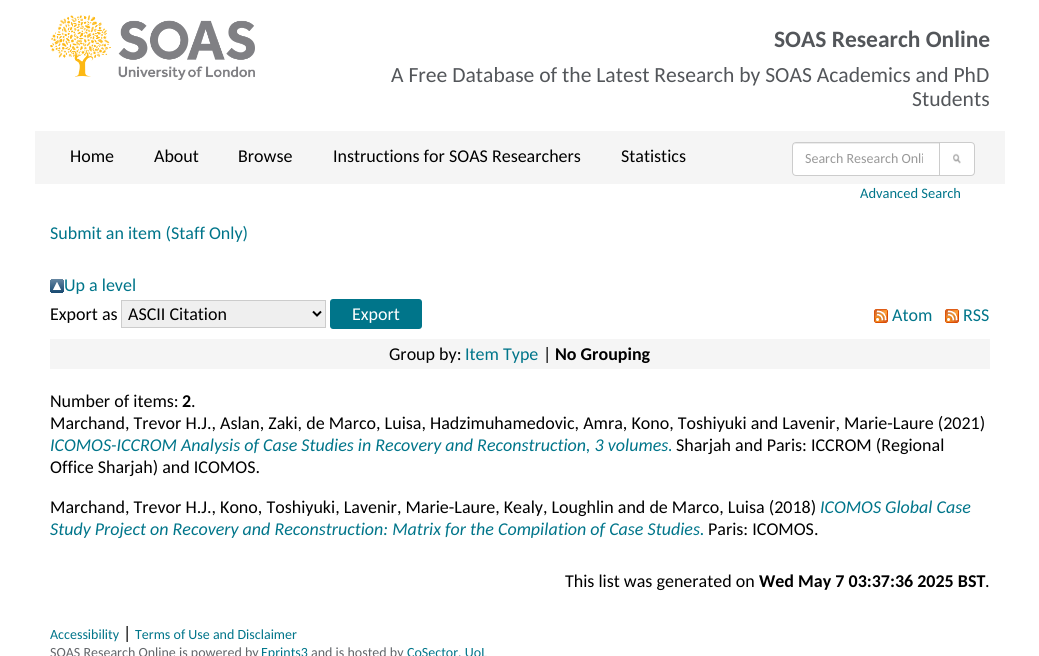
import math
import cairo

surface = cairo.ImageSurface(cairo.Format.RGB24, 1039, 656)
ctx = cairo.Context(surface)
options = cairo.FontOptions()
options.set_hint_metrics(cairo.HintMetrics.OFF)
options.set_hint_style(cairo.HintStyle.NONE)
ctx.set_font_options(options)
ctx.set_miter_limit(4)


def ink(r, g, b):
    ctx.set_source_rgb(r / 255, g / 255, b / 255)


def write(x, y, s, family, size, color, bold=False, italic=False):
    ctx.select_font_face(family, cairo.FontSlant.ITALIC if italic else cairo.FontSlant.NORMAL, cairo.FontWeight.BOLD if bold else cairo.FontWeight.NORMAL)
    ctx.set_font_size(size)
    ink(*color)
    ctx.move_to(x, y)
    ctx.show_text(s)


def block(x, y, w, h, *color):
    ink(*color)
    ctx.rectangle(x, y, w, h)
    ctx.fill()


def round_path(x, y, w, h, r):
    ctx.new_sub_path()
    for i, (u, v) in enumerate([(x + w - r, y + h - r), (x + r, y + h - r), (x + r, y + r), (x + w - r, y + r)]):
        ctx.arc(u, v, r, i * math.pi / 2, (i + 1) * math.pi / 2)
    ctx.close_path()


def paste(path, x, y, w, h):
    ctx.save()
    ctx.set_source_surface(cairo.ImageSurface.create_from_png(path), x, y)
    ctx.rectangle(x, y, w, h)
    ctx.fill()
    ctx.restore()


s1 = dict(family="Carlito", size=23.5, color=(83, 86, 90), bold=True)
s2 = dict(family="Carlito", size=21.6, color=(83, 86, 90))
s3 = dict(family="Carlito", size=18, color=(0, 0, 0))
s4 = dict(family="Carlito", size=14, color=(153, 153, 153))
s5 = dict(family="Carlito", size=14.5, color=(0, 117, 138))
s6 = dict(family="Carlito", size=18, color=(0, 117, 138))
s7 = dict(family="Carlito", size=18, color=(255, 255, 255))
s8 = dict(family="Carlito", size=18, color=(0, 0, 0), bold=True)
s9 = dict(family="Carlito", size=18, color=(0, 117, 138), italic=True)
s10 = dict(family="Carlito", size=14, color=(0, 117, 138))
s11 = dict(family="Carlito", size=14, color=(99, 102, 106))

ink(255, 255, 255)
ctx.paint()
paste("pic1.png", 50, 15, 205, 65)
write(774, 47, "SOAS Research Online", **s1)
write(391, 82, "A Free Database of the Latest Research by SOAS Academics and PhD", **s2)
write(912, 106, "Students", **s2)
block(35, 131, 970, 53, 245, 245, 245)
write(70, 162, "Home", **s3)
write(154, 162, "About", **s3)
write(238, 162, "Browse", **s3)
write(333, 162, "Instructions for SOAS Researchers", **s3)
write(621, 162, "Statistics", **s3)
ink(255, 255, 255)
ctx.new_path()
ctx.move_to(796, 142)
ctx.line_to(940, 142)
ctx.line_to(940, 176)
ctx.line_to(796, 176)
ctx.curve_to(794, 176, 792, 174, 792, 172)
ctx.line_to(792, 146)
ctx.curve_to(792, 144, 794, 142, 796, 142)
ctx.close_path()
ctx.fill()
ink(236, 236, 236)
ctx.new_path()
ctx.move_to(796, 144)
ctx.line_to(939, 144)
ctx.line_to(939, 143)
ctx.line_to(796, 143)
ctx.curve_to(794, 143, 793, 145, 793, 147)
ctx.curve_to(793, 145, 794, 144, 796, 144)
ctx.close_path()
ctx.fill()
ctx.new_path()
ctx.move_to(796, 142.5)
ctx.line_to(939.5, 142.5)
ctx.line_to(939.5, 175.5)
ctx.line_to(796, 175.5)
ctx.curve_to(794, 175.5, 792.5, 174, 792.5, 172)
ctx.line_to(792.5, 146)
ctx.curve_to(792.5, 144, 794, 142.5, 796, 142.5)
ctx.close_path()
ink(204, 204, 204)
ctx.set_line_width(1)
ctx.stroke()
ctx.save()
ctx.rectangle(805, 150, 118, 17)
ctx.clip()
write(805, 163, "Search Research Onli", **s4)
ctx.restore()
ink(255, 255, 255)
ctx.new_path()
ctx.move_to(939.5, 142.5)
ctx.line_to(971, 142.5)
ctx.curve_to(973, 142.5, 974.5, 144, 974.5, 146)
ctx.line_to(974.5, 172)
ctx.curve_to(974.5, 174, 973, 175.5, 971, 175.5)
ctx.line_to(939.5, 175.5)
ctx.close_path()
ctx.fill_preserve()
ink(204, 204, 204)
ctx.stroke()
paste("pic2.png", 953, 153, 8, 11)
write(860, 198, "Advanced Search", **s5)
write(50, 239, "Submit an item (Staff Only)", **s6)
paste("pic3.png", 50, 279, 14, 14)
write(64, 291, "Up a level", **s6)
write(50, 320, "Export as", **s3)
ink(239, 239, 239)
ctx.rectangle(121.5, 300.5, 204, 27)
ctx.fill_preserve()
ink(204, 204, 204)
ctx.stroke()
ctx.new_path()
ctx.move_to(313, 311.5)
ctx.line_to(317, 315.5)
ctx.line_to(321, 311.5)
ink(0, 0, 0)
ctx.set_line_width(2)
ctx.stroke()
write(128, 320, "ASCII Citation", **s3)
ink(0, 117, 138)
round_path(331, 300, 90, 28, 2)
ctx.fill_preserve()
ctx.stroke()
write(352, 320, "Export", **s7)
paste("pic4.png", 874, 309, 14, 14)
write(892, 321, "Atom", **s6)
paste("pic4.png", 945, 309, 14, 14)
write(963, 321, "RSS", **s6)
block(50, 339, 940, 30, 245, 245, 245)
write(389, 360, "Group by:", **s3)
write(465, 360, "Item Type", **s6)
write(543, 360, "|", **s3)
write(555, 360, "No Grouping", **s8)
write(50, 407, "Number of items:", **s3)
write(182, 407, "2", **s8)
write(191, 407, ".", **s3)
write(50, 429, "Marchand, Trevor H.J., Aslan, Zaki, de Marco, Luisa, Hadzimuhamedovic, Amra, Kono, Toshiyuki and Lavenir, Marie-Laure (2021)", **s3)
write(50, 451, "ICOMOS-ICCROM Analysis of Case Studies in Recovery and Reconstruction, 3 volumes.", **s9)
write(676, 451, "Sharjah and Paris: ICCROM (Regional", **s3)
write(50, 473, "Office Sharjah) and ICOMOS.", **s3)
write(50, 513, "Marchand, Trevor H.J., Kono, Toshiyuki, Lavenir, Marie-Laure, Kealy, Loughlin and de Marco, Luisa (2018)", **s3)
write(820, 513, "ICOMOS Global Case", **s9)
write(50, 535, "Study Project on Recovery and Reconstruction: Matrix for the Compilation of Case Studies.", **s9)
write(708, 535, "Paris: ICOMOS.", **s3)
write(565, 587, "This list was generated on", **s3)
write(759, 587, "Wed May 7 03:37:36 2025 BST", **s8)
write(985, 587, ".", **s3)
write(50, 639, "Accessibility", **s10)
write(123, 639, "|", **s3)
write(135, 639, "Terms of Use and Disclaimer", **s10)
write(50, 657, "SOAS Research Online is powered by", **s11)
write(261, 657, "Eprints3", **s10)
write(311, 657, "and is hosted by", **s11)
write(407, 657, "CoSector, UoL", **s10)
surface.write_to_png("screenshot.png")
